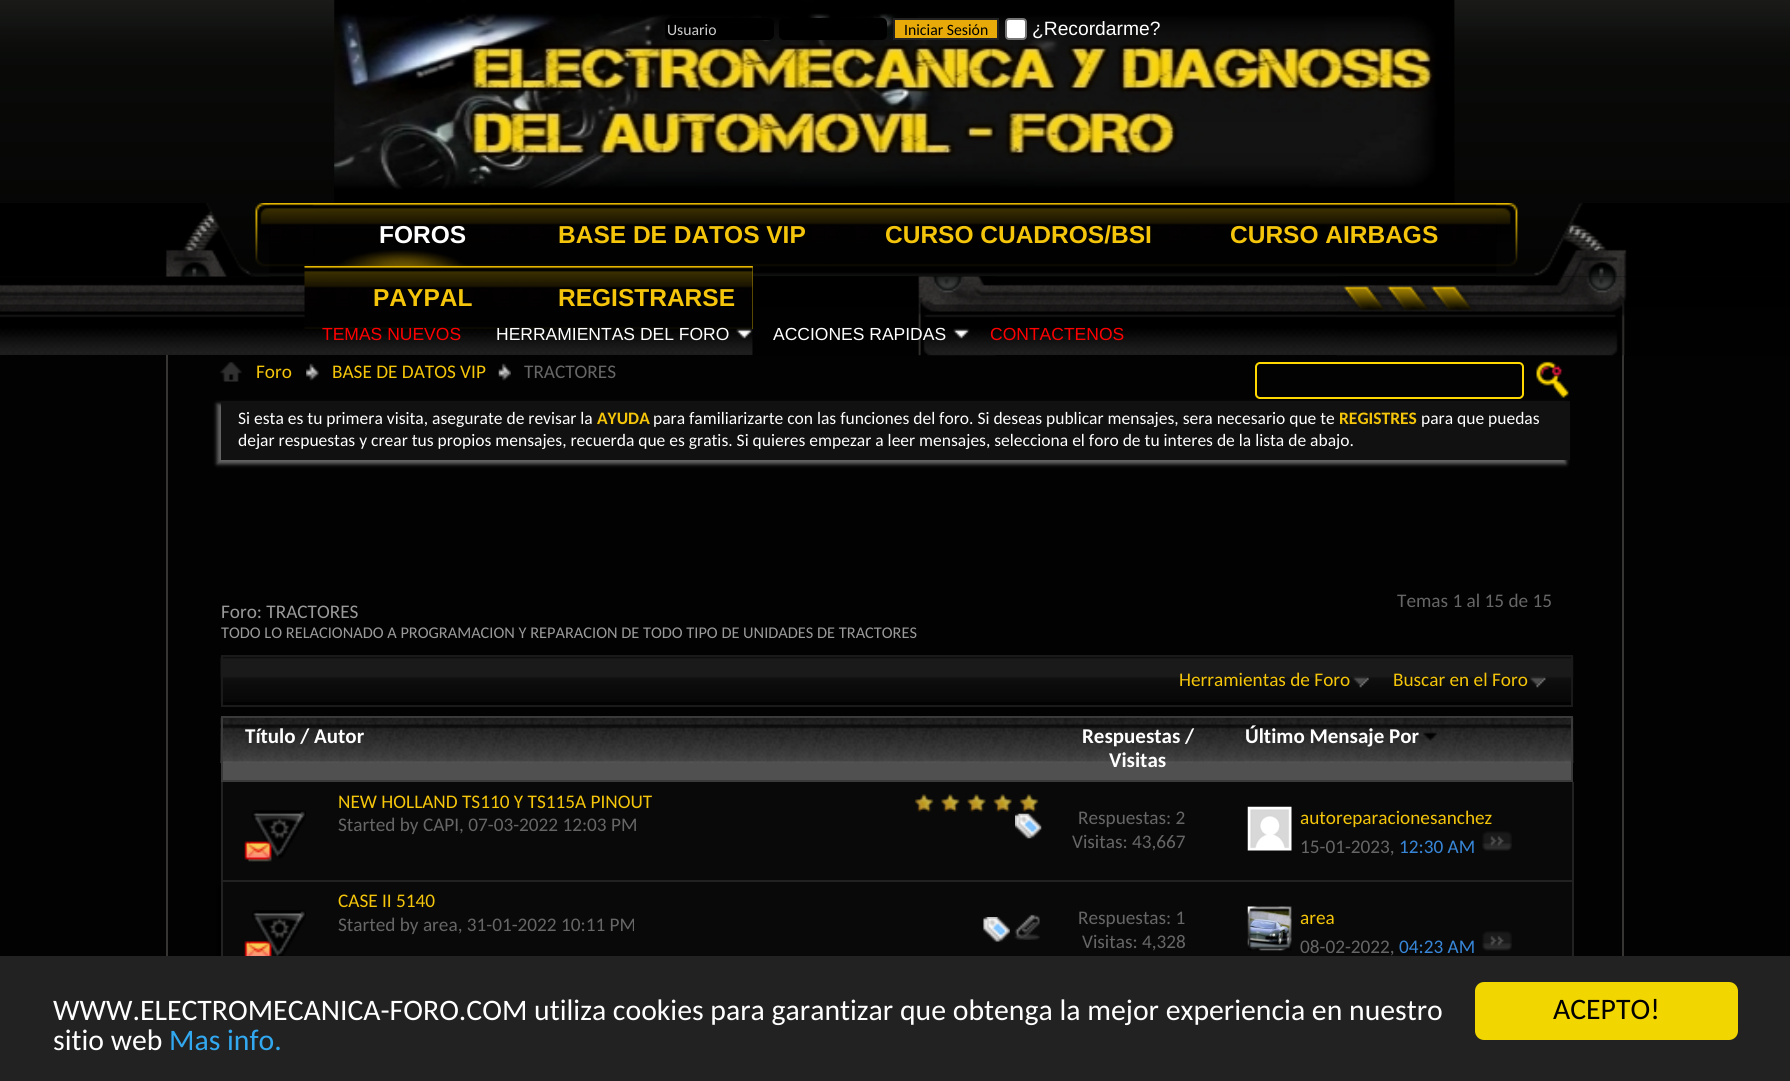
import math
import cairo

surface = cairo.ImageSurface(cairo.Format.RGB24, 1790, 1081)
ctx = cairo.Context(surface)
options = cairo.FontOptions()
options.set_hint_metrics(cairo.HintMetrics.OFF)
options.set_hint_style(cairo.HintStyle.NONE)
ctx.set_font_options(options)
ctx.set_miter_limit(4)


def ink(r, g, b):
    ctx.set_source_rgb(r / 255, g / 255, b / 255)


def write(x, y, s, family, size, color, bold=False, italic=False):
    ctx.select_font_face(family, cairo.FontSlant.ITALIC if italic else cairo.FontSlant.NORMAL, cairo.FontWeight.BOLD if bold else cairo.FontWeight.NORMAL)
    ctx.set_font_size(size)
    ink(*color)
    ctx.move_to(x, y)
    ctx.show_text(s)


def block(x, y, w, h, *color):
    ink(*color)
    ctx.rectangle(x, y, w, h)
    ctx.fill()


def round_path(x, y, w, h, r):
    ctx.new_sub_path()
    for i, (u, v) in enumerate([(x + w - r, y + h - r), (x + r, y + h - r), (x + r, y + r), (x + w - r, y + r)]):
        ctx.arc(u, v, r, i * math.pi / 2, (i + 1) * math.pi / 2)
    ctx.close_path()


def blur_box(x, y, w, h, r, blur, alpha):
    ctx.push_group_with_content(cairo.Content.ALPHA)
    ctx.set_operator(cairo.Operator.SOURCE)
    for i in range(15, -16, -2):
        e = blur * i / 6
        if min(w, h) + 2 * e > 0:
            ctx.set_source_rgba(0, 0, 0, alpha * math.erfc((i - 1) / 8.5) / 2)
            round_path(x - e, y - e, w + 2 * e, h + 2 * e, max(0, min(r + e + blur * .6, min(w, h) / 2 + e)))
            ctx.fill()
    ctx.mask(ctx.pop_group())


def paste(path, x, y, w, h):
    ctx.save()
    ctx.set_source_surface(cairo.ImageSurface.create_from_png(path), x, y)
    ctx.rectangle(x, y, w, h)
    ctx.fill()
    ctx.restore()


s1 = dict(family="Carlito", size=15.75, color=(204, 204, 204))
s2 = dict(family="Carlito", size=15.75, color=(0, 0, 0))
s3 = dict(family="Liberation Sans", size=19.25, color=(255, 255, 255))
s4 = dict(family="Liberation Sans", size=24.5, color=(255, 255, 255), bold=True)
s5 = dict(family="Liberation Sans", size=24.5, color=(244, 197, 10), bold=True)
s6 = dict(family="Liberation Sans", size=17.5, color=(255, 0, 0))
s7 = dict(family="Liberation Sans", size=17.5, color=(255, 255, 255))
s8 = dict(family="Carlito", size=19.25, color=(244, 197, 10))
s9 = dict(family="Carlito", size=19.25, color=(102, 102, 102))
s10 = dict(family="Carlito", size=17.5, color=(255, 255, 255))
s11 = dict(family="Carlito", size=17.5, color=(244, 197, 10), bold=True)
s12 = dict(family="Carlito", size=19.25, color=(153, 153, 153))
s13 = dict(family="Carlito", size=16.35, color=(153, 153, 153))
s14 = dict(family="Carlito", size=21, color=(255, 255, 255), bold=True)
s15 = dict(family="Carlito", size=19.25, color=(55, 134, 216))
s16 = dict(family="Carlito", size=29.75, color=(255, 255, 255))
s17 = dict(family="Carlito", size=29.75, color=(49, 168, 240))
s18 = dict(family="Carlito", size=29.75, color=(0, 0, 0))

ink(255, 255, 255)
ctx.paint()
paste("pic1.png", 0, 276, 1790, 1)
paste("pic2.png", 0, 0, 1790, 203)
paste("pic3.png", 334, 0, 1121, 203)
ink(0, 0, 0)
round_path(665, 18, 109, 22, 5)
ctx.fill()
write(667, 35, "Usuario", **s1)
ink(0, 0, 0)
round_path(779, 18, 108, 22, 5)
ctx.fill()
ink(231, 170, 9)
ctx.rectangle(894, 19, 104, 20)
ctx.fill_preserve()
ink(34, 34, 34)
ctx.stroke()
write(904, 35, "Iniciar Sesión", **s2)
ink(255, 255, 255)
round_path(1006, 19, 20, 20, 3)
ctx.fill_preserve()
ink(118, 118, 118)
ctx.stroke()
write(1032, 35, "¿Recordarme?", **s3)
paste("pic4.png", 0, 203, 1790, 74)
paste("pic16.png", 0, 276, 1790, 79)
paste("pic5.png", 0, 203, 270, 74)
paste("pic6.png", 270, 203, 1226, 63)
paste("pic7.png", 313, 204, 177, 62)
write(379, 243, "FOROS", **s4)
paste("pic8.png", 497, 203, 327, 63)
write(558, 243, "BASE DE DATOS VIP", **s5)
paste("pic9.png", 824, 203, 345, 63)
write(885, 243, "CURSO CUADROS/BSI", **s5)
paste("pic10.png", 1169, 203, 287, 63)
write(1230, 243, "CURSO AIRBAGS", **s5)
paste("pic11.png", 304, 266, 193, 63)
write(373, 306, "PAYPAL", **s5)
block(0, 355, 1790, 601, 2, 2, 2)
paste("pic17.png", 752, 276, 244, 80)
block(752, 266, 1, 63, 177, 142, 1)
paste("pic12.png", 497, 266, 256, 63)
write(558, 306, "REGISTRARSE", **s5)
write(322, 340, "TEMAS NUEVOS", **s6)
write(496, 340, "HERRAMIENTAS DEL FORO", **s7)
paste("pic13.png", 736, 328, 17, 11)
write(773, 340, "ACCIONES RAPIDAS", **s7)
paste("pic14.png", 953, 328, 17, 11)
write(990, 340, "CONTACTENOS", **s6)
paste("pic15.png", 1496, 203, 294, 74)
block(1622, 355, 2, 601, 55, 53, 52)
paste("pic18.png", 1337, 276, 453, 80)
block(166, 355, 2, 601, 55, 53, 52)
paste("pic19.png", 220, 362, 22, 20)
paste("pic20.png", 306, 363, 13, 18)
write(256, 378, "Foro", **s8)
paste("pic21.png", 498, 363, 13, 18)
write(332, 378, "BASE DE DATOS VIP", **s8)
write(524, 378, "TRACTORES", **s9)
ink(102, 102, 102)
blur_box(217, 404, 1349, 60, 0, 2, 1)
round_path(1256, 363, 267, 35, 4)
ink(255, 216, 0)
ctx.stroke()
paste("pic22.png", 1536, 361, 33, 37)
block(221, 401, 1349, 59, 17, 17, 17)
write(238, 424, "Si esta es tu primera visita, asegurate de revisar la", **s10)
write(597, 424, "AYUDA", **s11)
write(653, 424, "para familiarizarte con las funciones del foro. Si deseas publicar mensajes, sera necesario que te", **s10)
write(1339, 424, "REGISTRES", **s11)
write(1421, 424, "para que puedas", **s10)
write(238, 446, "dejar respuestas y crear tus propios mensajes, recuerda que es gratis. Si quieres empezar a leer mensajes, selecciona el foro de tu interes de la lista de abajo.", **s10)
write(1397, 607, "Temas 1 al 15 de 15", **s9)
write(221, 618, "Foro: TRACTORES", **s12)
write(221, 638, "TODO LO RELACIONADO A PROGRAMACION Y REPARACION DE TODO TIPO DE UNIDADES DE TRACTORES", **s13)
paste("pic23.png", 220, 656, 1354, 46)
ctx.rectangle(222, 656, 1350, 50)
ink(26, 26, 26)
ctx.stroke()
paste("pic24.png", 1352, 676, 17, 12)
write(1179, 686, "Herramientas de Foro", **s8)
paste("pic25.png", 1529, 676, 17, 12)
write(1393, 686, "Buscar en el Foro", **s8)
block(223, 763, 1348, 17, 80, 80, 80)
paste("pic26.png", 220, 717, 1354, 46)
ctx.rectangle(222, 717, 1350, 64)
ink(58, 58, 58)
ctx.stroke()
write(245, 743, "Título / Autor", **s14)
write(1082, 743, "Respuestas /", **s14)
write(1109, 767, "Visitas", **s14)
write(1245, 743, "Último Mensaje Por", **s14)
paste("pic27.png", 1423, 731, 15, 10)
block(223, 782, 1349, 98, 9, 9, 9)
block(1572, 782, 2, 100, 34, 34, 34)
block(221, 880, 1352, 2, 34, 34, 34)
block(221, 782, 2, 100, 34, 34, 34)
paste("pic28.png", 244, 810, 62, 52)
paste("pic29.png", 914, 794, 125, 18)
write(338, 808, "NEW HOLLAND TS110 Y TS115A PINOUT", **s8)
write(338, 831, "Started by CAPI, 07-03-2022 12:03 PM", **s9)
paste("pic30.png", 1015, 813, 27, 26)
write(1078, 824, "Respuestas: 2", **s9)
write(1072, 848, "Visitas: 43,667", **s9)
paste("pic31.png", 1247, 806, 45, 45)
write(1300, 824, "autoreparacionesanchez", **s8)
write(1300, 853, "15-01-2023,", **s9)
write(1399, 853, "12:30 AM", **s15)
paste("pic32.png", 1482, 831, 30, 20)
ink(0, 0, 0)
blur_box(217, 886, 1349, 99, 0, 2, 1)
block(223, 882, 1349, 74, 9, 9, 9)
block(1572, 882, 2, 74, 34, 34, 34)
block(221, 882, 2, 74, 34, 34, 34)
paste("pic33.png", 244, 910, 62, 46)
write(338, 907, "CASE II 5140", **s8)
write(338, 931, "Started by area, 31-01-2022 10:11 PM", **s9)
paste("pic34.png", 983, 917, 27, 25)
paste("pic35.png", 1014, 914, 26, 26)
write(1078, 924, "Respuestas: 1", **s9)
write(1082, 948, "Visitas: 4,328", **s9)
paste("pic36.png", 1247, 906, 45, 45)
write(1300, 924, "area", **s8)
write(1300, 953, "08-02-2022,", **s9)
write(1399, 953, "04:23 AM", **s15)
paste("pic37.png", 1482, 931, 30, 20)
block(0, 956, 1790, 125, 34, 34, 34)
write(53, 1020, "WWW.ELECTROMECANICA-FORO.COM utiliza cookies para garantizar que obtenga la mejor experiencia en nuestro", **s16)
write(53, 1050, "sitio web", **s16)
write(169, 1050, "Mas info.", **s17)
ink(241, 214, 0)
round_path(1475, 982, 263, 58, 9)
ctx.fill()
write(1553, 1019, "ACEPTO!", **s18)
surface.write_to_png("screenshot.png")
